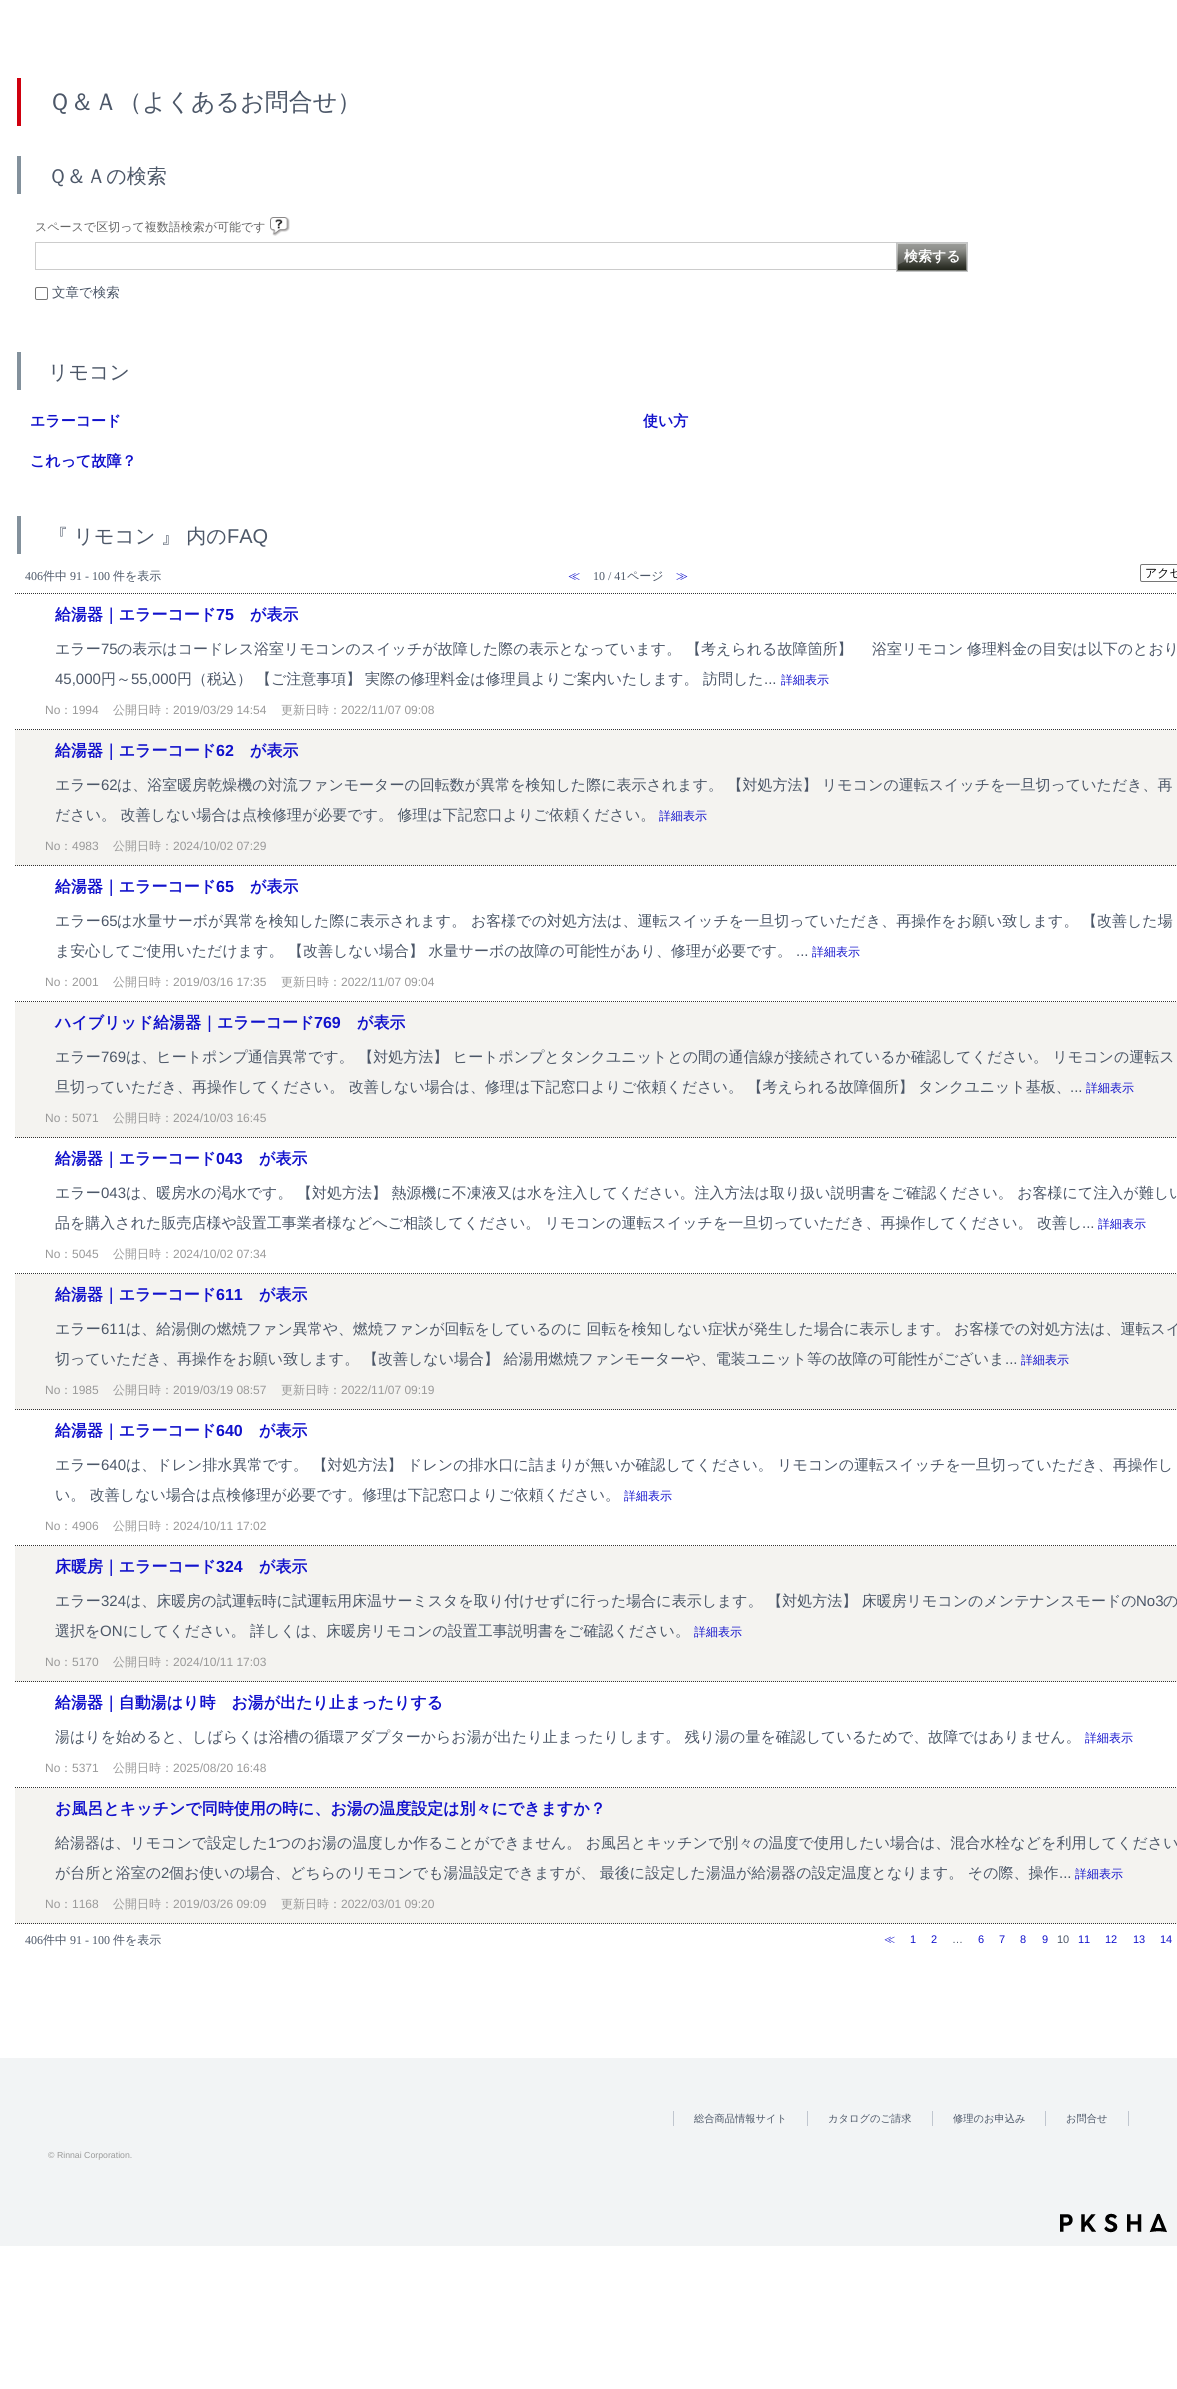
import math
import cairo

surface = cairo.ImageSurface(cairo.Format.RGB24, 1177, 2389)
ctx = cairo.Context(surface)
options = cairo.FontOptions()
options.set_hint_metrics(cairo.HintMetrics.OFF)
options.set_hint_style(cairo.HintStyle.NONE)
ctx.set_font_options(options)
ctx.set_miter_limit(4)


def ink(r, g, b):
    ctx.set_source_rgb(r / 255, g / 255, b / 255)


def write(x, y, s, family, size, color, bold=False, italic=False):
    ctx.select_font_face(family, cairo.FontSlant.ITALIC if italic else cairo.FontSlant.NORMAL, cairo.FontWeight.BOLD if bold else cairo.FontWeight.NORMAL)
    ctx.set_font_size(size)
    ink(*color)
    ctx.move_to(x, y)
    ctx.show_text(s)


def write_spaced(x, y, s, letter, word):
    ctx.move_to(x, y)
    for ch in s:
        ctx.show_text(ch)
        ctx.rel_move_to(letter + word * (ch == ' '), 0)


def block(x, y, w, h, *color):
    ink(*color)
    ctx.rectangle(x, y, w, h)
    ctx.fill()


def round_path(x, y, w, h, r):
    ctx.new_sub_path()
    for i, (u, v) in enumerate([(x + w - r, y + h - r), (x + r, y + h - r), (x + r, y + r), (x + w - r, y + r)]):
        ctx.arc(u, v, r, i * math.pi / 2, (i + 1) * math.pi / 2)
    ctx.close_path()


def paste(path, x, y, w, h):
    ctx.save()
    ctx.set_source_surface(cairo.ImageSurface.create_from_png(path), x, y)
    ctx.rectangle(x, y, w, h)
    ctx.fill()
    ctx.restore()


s1 = dict(family="WenQuanYi Zen Hei Medium", size=24, color=(76, 87, 104))
s2 = dict(family="WenQuanYi Zen Hei Medium", size=20, color=(76, 87, 104))
s3 = dict(family="WenQuanYi Zen Hei Medium", size=12, color=(102, 102, 102))
s4 = dict(family="WenQuanYi Zen Hei", size=14, color=(255, 255, 255), bold=True)
s5 = dict(family="WenQuanYi Zen Hei Medium", size=13.5, color=(76, 87, 104))
s6 = dict(family="WenQuanYi Zen Hei", size=15, color=(17, 17, 204), bold=True)
s7 = dict(family="Liberation Sans", size=20, color=(76, 87, 104))
s8 = dict(family="Liberation Serif", size=12, color=(76, 87, 104))
s9 = dict(family="WenQuanYi Zen Hei Medium", size=12, color=(76, 87, 104))
s10 = dict(family="WenQuanYi Zen Hei Medium", size=12, color=(17, 17, 204))
s11 = dict(family="WenQuanYi Zen Hei Medium", size=12, color=(0, 0, 0))
s12 = dict(family="WenQuanYi Zen Hei", size=16, color=(17, 17, 204), bold=True)
s13 = dict(family="Liberation Sans", size=16, color=(17, 17, 204), bold=True)
s14 = dict(family="WenQuanYi Zen Hei Medium", size=15, color=(76, 87, 104))
s15 = dict(family="Liberation Sans", size=15, color=(76, 87, 104))
s16 = dict(family="Liberation Sans", size=12, color=(153, 153, 153))
s17 = dict(family="WenQuanYi Zen Hei Medium", size=12, color=(153, 153, 153))
s18 = dict(family="WenQuanYi Zen Hei Medium", size=11, color=(17, 17, 204))
s19 = dict(family="Liberation Sans", size=11, color=(17, 17, 204))
s20 = dict(family="Liberation Sans", size=11, color=(76, 87, 104))
s21 = dict(family="WenQuanYi Zen Hei Medium", size=10.25, color=(76, 87, 104))
s22 = dict(family="Liberation Sans", size=8.75, color=(153, 153, 153))

ink(255, 255, 255)
ctx.paint()
block(17, 78, 4, 48, 207, 0, 14)
write(48, 110, "Ｑ＆Ａ（よくあるお問合せ）", **s1)
block(17, 156, 4, 38, 131, 145, 156)
write(48, 183, "Ｑ＆Ａの検索", **s2)
write(35, 231, "スペースで区切って複数語検索が可能です", **s3)
paste("pic1.png", 270, 217, 20, 19)
block(35, 242, 861, 1, 204, 204, 204)
block(35, 269, 861, 1, 204, 204, 204)
block(35, 242, 1, 28, 204, 204, 204)
paste("pic2.png", 896, 242, 72, 30)
write(904, 261, "検索する", **s4)
round_path(35.5, 287.5, 12, 12, 1.5)
ink(118, 118, 118)
ctx.set_line_width(1)
ctx.stroke()
write(52, 297, "文章で検索", **s5)
block(17, 352, 4, 38, 131, 145, 156)
write(48, 379, "リモコン", **s2)
write(30, 426, "エラーコード", **s6)
write(643, 426, "使い方", **s6)
write(30, 466, "これって故障？", **s6)
block(17, 516, 4, 38, 131, 145, 156)
ctx.select_font_face("WenQuanYi Zen Hei Medium")
ctx.set_font_size(20)
ink(76, 87, 104)
write_spaced(48, 543, "『 リモコン 』 内の", 0, -0.5)
write(227, 543, "FAQ", **s7)
write(25, 580, "406", **s8)
write(43, 580, "件中", **s9)
write(70, 580, "91 - 100", **s8)
write(113, 580, "件を表示", **s9)
write(568, 580, "≪", **s10)
write(593, 580, "10 / 41", **s8)
write(627, 580, "ページ", **s9)
write(676, 580, "≫", **s10)
round_path(1140.5, 564.5, 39, 17, 1.5)
ink(118, 118, 118)
ctx.stroke()
write(1145, 577, "アクセ", **s11)
ctx.new_path()
ctx.move_to(15, 593.5)
ctx.line_to(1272, 593.5)
ink(51, 51, 51)
ctx.set_dash([1, 1])
ctx.stroke()
ctx.new_path()
ctx.move_to(15, 729.5)
ctx.line_to(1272, 729.5)
ctx.stroke()
write(55, 620, "給湯器｜エラーコード", **s12)
write(216, 620, "75", **s13)
write(250, 620, "が表示", **s12)
write(55, 654, "エラー", **s14)
write(101, 654, "75", **s15)
write(117, 654, "の表示はコードレス浴室リモコンのスイッチが故障した際の表示となっています。", **s14)
write(686, 654, "【考えられる故障箇所】 　浴室リモコン", **s14)
write(967, 654, "修理料金の目安は以下のとおり", **s14)
write(55, 684, "45,000", **s15)
write(101, 684, "円～", **s14)
write(131, 684, "55,000", **s15)
write(177, 684, "円（税込）", **s14)
write(256, 684, "【ご注意事項】", **s14)
write(365, 684, "実際の修理料金は修理員よりご案内いたします。", **s14)
write(703, 684, "訪問した", **s14)
write(764, 684, "...", **s15)
write(781, 684, "詳細表示", **s10)
write(45, 714, "No", **s16)
write(60, 714, "：", **s17)
write(72, 714, "1994", **s16)
write(113, 714, "公開日時：", **s17)
write(173, 714, "2019/03/29 14:54", **s16)
write(281, 714, "更新日時：", **s17)
write(341, 714, "2022/11/07 09:08", **s16)
block(15, 730, 1162, 136, 244, 243, 240)
ctx.new_path()
ctx.move_to(15, 865.5)
ctx.line_to(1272, 865.5)
ink(51, 51, 51)
ctx.stroke()
write(55, 756, "給湯器｜エラーコード", **s12)
write(216, 756, "62", **s13)
write(250, 756, "が表示", **s12)
write(55, 790, "エラー", **s14)
write(101, 790, "62", **s15)
write(117, 790, "は、浴室暖房乾燥機の対流ファンモーターの回転数が異常を検知した際に表示されます。 【対処方法】 リモコンの運転スイッチを一旦切っていただき、再", **s14)
write(55, 820, "ださい。 改善しない場合は点検修理が必要です。 修理は下記窓口よりご依頼ください。", **s14)
write(659, 820, "詳細表示", **s10)
write(45, 850, "No", **s16)
write(60, 850, "：", **s17)
write(72, 850, "4983", **s16)
write(113, 850, "公開日時：", **s17)
write(173, 850, "2024/10/02 07:29", **s16)
ctx.new_path()
ctx.move_to(15, 1001.5)
ctx.line_to(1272, 1001.5)
ink(51, 51, 51)
ctx.stroke()
write(55, 892, "給湯器｜エラーコード", **s12)
write(216, 892, "65", **s13)
write(250, 892, "が表示", **s12)
write(55, 926, "エラー", **s14)
write(101, 926, "65", **s15)
write(117, 926, "は水量サーボが異常を検知した際に表示されます。", **s14)
write(471, 926, "お客様での対処方法は、運転スイッチを一旦切っていただき、再操作をお願い致します。", **s14)
write(1082, 926, "【改善した場", **s14)
write(55, 956, "ま安心してご使用いただけます。", **s14)
write(288, 956, "【改善しない場合】 水量サーボの故障の可能性があり、修理が必要です。", **s14)
write(796, 956, "...", **s15)
write(812, 956, "詳細表示", **s10)
write(45, 986, "No", **s16)
write(60, 986, "：", **s17)
write(72, 986, "2001", **s16)
write(113, 986, "公開日時：", **s17)
write(173, 986, "2019/03/16 17:35", **s16)
write(281, 986, "更新日時：", **s17)
write(341, 986, "2022/11/07 09:04", **s16)
block(15, 1002, 1162, 136, 244, 243, 240)
ctx.new_path()
ctx.move_to(15, 1137.5)
ctx.line_to(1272, 1137.5)
ink(51, 51, 51)
ctx.stroke()
write(55, 1028, "ハイブリッド給湯器｜エラーコード", **s12)
write(314, 1028, "769", **s13)
write(357, 1028, "が表示", **s12)
write(55, 1062, "エラー", **s14)
write(101, 1062, "769", **s15)
write(126, 1062, "は、ヒートポンプ通信異常です。 【対処方法】 ヒートポンプとタンクユニットとの間の通信線が接続されているか確認してください。 リモコンの運転ス", **s14)
write(55, 1092, "旦切っていただき、再操作してください。 改善しない場合は、修理は下記窓口よりご依頼ください。 【考えられる故障個所】 タンクユニット基板、", **s14)
write(1070, 1092, "...", **s15)
write(1086, 1092, "詳細表示", **s10)
write(45, 1122, "No", **s16)
write(60, 1122, "：", **s17)
write(72, 1122, "5071", **s16)
write(113, 1122, "公開日時：", **s17)
write(173, 1122, "2024/10/03 16:45", **s16)
ctx.new_path()
ctx.move_to(15, 1273.5)
ctx.line_to(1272, 1273.5)
ink(51, 51, 51)
ctx.stroke()
write(55, 1164, "給湯器｜エラーコード", **s12)
write(216, 1164, "043", **s13)
write(259, 1164, "が表示", **s12)
write(55, 1198, "エラー", **s14)
write(101, 1198, "043", **s15)
write(126, 1198, "は、暖房水の渇水です。 【対処方法】 熱源機に不凍液又は水を注入してください。注入方法は取り扱い説明書をご確認ください。 お客様にて注入が難しい", **s14)
write(55, 1228, "品を購入された販売店様や設置工事業者様などへご相談してください。 リモコンの運転スイッチを一旦切っていただき、再操作してください。 改善し", **s14)
write(1082, 1228, "...", **s15)
write(1098, 1228, "詳細表示", **s10)
write(45, 1258, "No", **s16)
write(60, 1258, "：", **s17)
write(72, 1258, "5045", **s16)
write(113, 1258, "公開日時：", **s17)
write(173, 1258, "2024/10/02 07:34", **s16)
block(15, 1274, 1162, 136, 244, 243, 240)
ctx.new_path()
ctx.move_to(15, 1409.5)
ctx.line_to(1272, 1409.5)
ink(51, 51, 51)
ctx.stroke()
write(55, 1300, "給湯器｜エラーコード", **s12)
write(216, 1300, "611", **s13)
write(259, 1300, "が表示", **s12)
write(55, 1334, "エラー", **s14)
write(101, 1334, "611", **s15)
write(126, 1334, "は、給湯側の燃焼ファン異常や、燃焼ファンが回転をしているのに 回転を検知しない症状が発生した場合に表示します。", **s14)
write(954, 1334, "お客様での対処方法は、運転スイ", **s14)
write(55, 1364, "切っていただき、再操作をお願い致します。", **s14)
write(363, 1364, "【改善しない場合】 給湯用燃焼ファンモーターや、電装ユニット等の故障の可能性がございま", **s14)
write(1005, 1364, "...", **s15)
write(1021, 1364, "詳細表示", **s10)
write(45, 1394, "No", **s16)
write(60, 1394, "：", **s17)
write(72, 1394, "1985", **s16)
write(113, 1394, "公開日時：", **s17)
write(173, 1394, "2019/03/19 08:57", **s16)
write(281, 1394, "更新日時：", **s17)
write(341, 1394, "2022/11/07 09:19", **s16)
ctx.new_path()
ctx.move_to(15, 1545.5)
ctx.line_to(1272, 1545.5)
ink(51, 51, 51)
ctx.stroke()
write(55, 1436, "給湯器｜エラーコード", **s12)
write(216, 1436, "640", **s13)
write(259, 1436, "が表示", **s12)
write(55, 1470, "エラー", **s14)
write(101, 1470, "640", **s15)
write(126, 1470, "は、ドレン排水異常です。 【対処方法】 ドレンの排水口に詰まりが無いか確認してください。 リモコンの運転スイッチを一旦切っていただき、再操作し", **s14)
write(55, 1500, "い。 改善しない場合は点検修理が必要です。修理は下記窓口よりご依頼ください。", **s14)
write(624, 1500, "詳細表示", **s10)
write(45, 1530, "No", **s16)
write(60, 1530, "：", **s17)
write(72, 1530, "4906", **s16)
write(113, 1530, "公開日時：", **s17)
write(173, 1530, "2024/10/11 17:02", **s16)
block(15, 1546, 1162, 136, 244, 243, 240)
ctx.new_path()
ctx.move_to(15, 1681.5)
ctx.line_to(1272, 1681.5)
ink(51, 51, 51)
ctx.stroke()
write(55, 1572, "床暖房｜エラーコード", **s12)
write(216, 1572, "324", **s13)
write(259, 1572, "が表示", **s12)
write(55, 1606, "エラー", **s14)
write(101, 1606, "324", **s15)
write(126, 1606, "は、床暖房の試運転時に試運転用床温サーミスタを取り付けせずに行った場合に表示します。 【対処方法】 床暖房リモコンのメンテナンスモードの", **s14)
write(1136, 1606, "No3", **s15)
write(1163, 1606, "の", **s14)
write(55, 1636, "選択を", **s14)
write(100, 1636, "ON", **s15)
write(123, 1636, "にしてください。 詳しくは、床暖房リモコンの設置工事説明書をご確認ください。", **s14)
write(694, 1636, "詳細表示", **s10)
write(45, 1666, "No", **s16)
write(60, 1666, "：", **s17)
write(72, 1666, "5170", **s16)
write(113, 1666, "公開日時：", **s17)
write(173, 1666, "2024/10/11 17:03", **s16)
ctx.new_path()
ctx.move_to(15, 1787.5)
ctx.line_to(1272, 1787.5)
ink(51, 51, 51)
ctx.stroke()
write(55, 1708, "給湯器｜自動湯はり時　お湯が出たり止まったりする", **s12)
write(55, 1742, "湯はりを始めると、しばらくは浴槽の循環アダプターからお湯が出たり止まったりします。 残り湯の量を確認しているためで、故障ではありません。", **s14)
write(1085, 1742, "詳細表示", **s10)
write(45, 1772, "No", **s16)
write(60, 1772, "：", **s17)
write(72, 1772, "5371", **s16)
write(113, 1772, "公開日時：", **s17)
write(173, 1772, "2025/08/20 16:48", **s16)
block(15, 1788, 1162, 136, 244, 243, 240)
ctx.new_path()
ctx.move_to(15, 1923.5)
ctx.line_to(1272, 1923.5)
ink(51, 51, 51)
ctx.stroke()
write(55, 1814, "お風呂とキッチンで同時使用の時に、お湯の温度設定は別々にできますか？", **s12)
write(55, 1848, "給湯器は、リモコンで設定した", **s14)
write(268, 1848, "1", **s15)
write(276, 1848, "つのお湯の温度しか作ることができません。 お風呂とキッチンで別々の温度で使用したい場合は、混合水栓などを利用してください", **s14)
write(55, 1878, "が台所と浴室の", **s14)
write(161, 1878, "2", **s15)
write(169, 1878, "個お使いの場合、どちらのリモコンでも湯温設定できますが、 最後に設定した湯温が給湯器の設定温度となります。 その際、操作", **s14)
write(1059, 1878, "...", **s15)
write(1075, 1878, "詳細表示", **s10)
write(45, 1908, "No", **s16)
write(60, 1908, "：", **s17)
write(72, 1908, "1168", **s16)
write(113, 1908, "公開日時：", **s17)
write(173, 1908, "2019/03/26 09:09", **s16)
write(281, 1908, "更新日時：", **s17)
write(341, 1908, "2022/03/01 09:20", **s16)
write(25, 1944, "406", **s8)
write(43, 1944, "件中", **s9)
write(70, 1944, "91 - 100", **s8)
write(113, 1944, "件を表示", **s9)
write(884, 1943, "≪", **s18)
write(910, 1943, "1", **s19)
write(931, 1943, "2", **s19)
write(952, 1943, "…", **s20)
write(978, 1943, "6", **s19)
write(999, 1943, "7", **s19)
write(1020, 1943, "8", **s19)
write(1042, 1943, "9", **s19)
write(1057, 1943, "10", **s20)
write(1078, 1943, "11", **s19)
write(1105, 1943, "12", **s19)
write(1133, 1943, "13", **s19)
write(1160, 1943, "14", **s19)
block(0, 2058, 1177, 188, 242, 244, 245)
block(673, 2111, 1, 15, 192, 198, 207)
write(694, 2122, "総合商品情報サイト", **s21)
block(807, 2111, 1, 15, 192, 198, 207)
write(828, 2122, "カタログのご請求", **s21)
block(932, 2111, 1, 15, 192, 198, 207)
write(953, 2122, "修理のお申込み", **s21)
block(1128, 2111, 1, 15, 192, 198, 207)
block(1045, 2111, 1, 15, 192, 198, 207)
write(1066, 2122, "お問合せ", **s21)
write(48, 2158, "© Rinnai Corporation.", **s22)
paste("pic3.png", 1060, 2213, 107, 20)
surface.write_to_png("screenshot.png")
